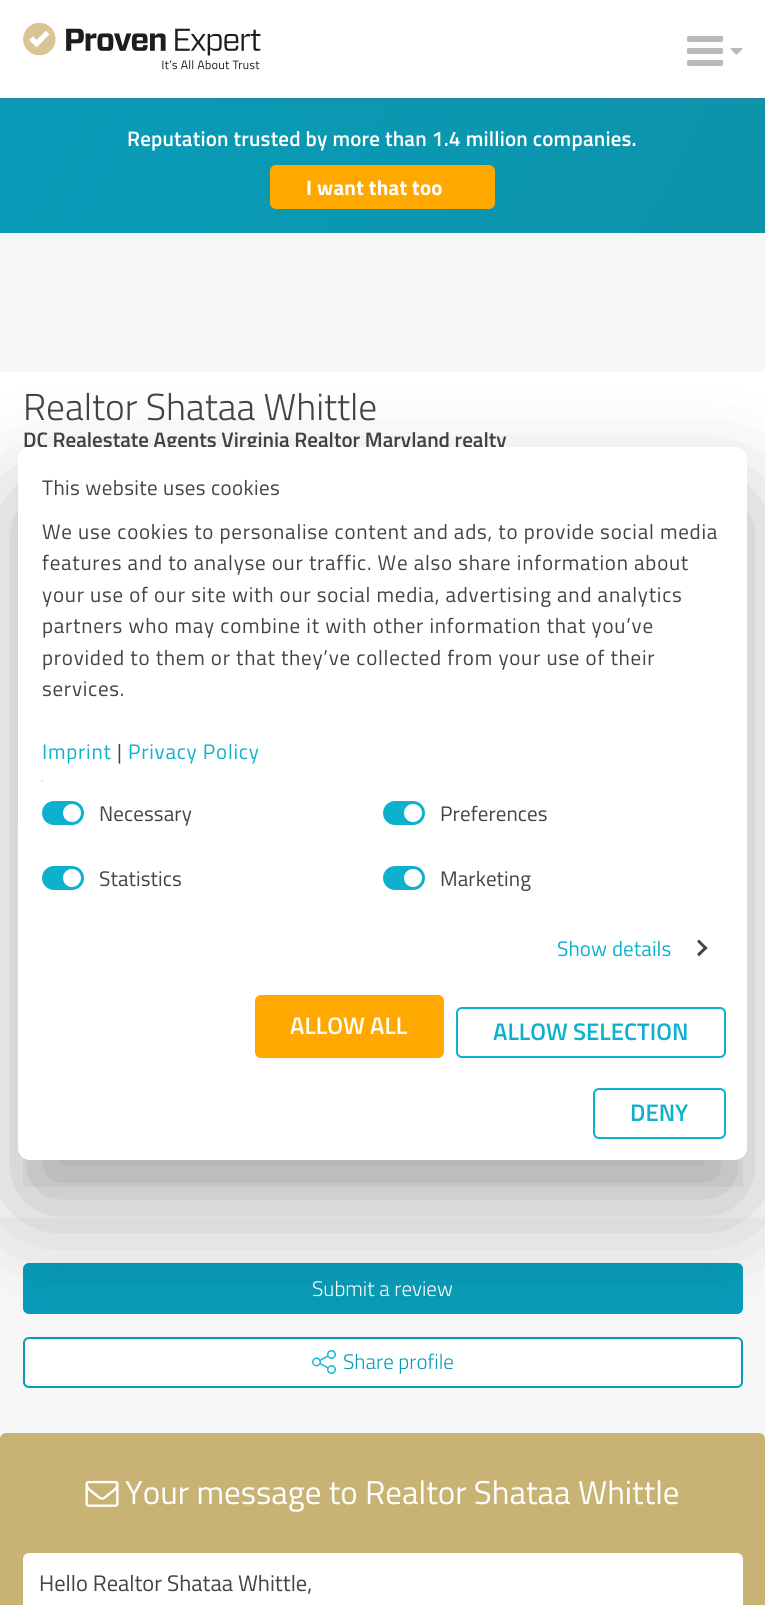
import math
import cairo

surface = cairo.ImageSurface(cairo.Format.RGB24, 765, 1605)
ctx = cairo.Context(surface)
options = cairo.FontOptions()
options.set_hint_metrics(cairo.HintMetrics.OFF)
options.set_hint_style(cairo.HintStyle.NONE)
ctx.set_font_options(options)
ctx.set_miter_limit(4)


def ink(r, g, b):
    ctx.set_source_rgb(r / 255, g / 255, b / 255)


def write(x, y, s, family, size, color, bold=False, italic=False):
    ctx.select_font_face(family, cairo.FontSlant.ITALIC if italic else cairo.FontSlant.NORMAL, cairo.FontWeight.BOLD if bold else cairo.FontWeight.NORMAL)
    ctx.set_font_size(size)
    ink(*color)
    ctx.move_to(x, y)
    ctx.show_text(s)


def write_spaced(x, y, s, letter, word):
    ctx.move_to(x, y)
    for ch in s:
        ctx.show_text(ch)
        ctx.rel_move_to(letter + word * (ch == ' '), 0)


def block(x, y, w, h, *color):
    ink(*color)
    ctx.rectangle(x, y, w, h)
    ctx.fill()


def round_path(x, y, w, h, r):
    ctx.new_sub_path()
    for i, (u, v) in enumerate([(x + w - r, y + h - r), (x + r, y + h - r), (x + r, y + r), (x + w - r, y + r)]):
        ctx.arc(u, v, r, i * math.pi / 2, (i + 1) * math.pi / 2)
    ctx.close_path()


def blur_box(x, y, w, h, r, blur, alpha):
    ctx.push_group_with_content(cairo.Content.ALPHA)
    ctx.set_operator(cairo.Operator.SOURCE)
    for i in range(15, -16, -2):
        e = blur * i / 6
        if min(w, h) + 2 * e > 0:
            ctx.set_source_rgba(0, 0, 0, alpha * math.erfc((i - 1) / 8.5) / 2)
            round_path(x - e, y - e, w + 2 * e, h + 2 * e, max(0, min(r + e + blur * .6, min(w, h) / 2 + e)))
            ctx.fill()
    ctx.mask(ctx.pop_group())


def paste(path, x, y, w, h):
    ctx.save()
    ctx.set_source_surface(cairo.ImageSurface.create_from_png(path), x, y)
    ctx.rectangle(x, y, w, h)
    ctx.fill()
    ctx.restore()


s1 = dict(family="Titillium Web Light", size=37.5, color=(68, 68, 68))
s2 = dict(family="Titillium Web SemiBold", size=21, color=(68, 68, 68))
s3 = dict(family="Titillium Web Light", size=21, color=(255, 255, 255))
s4 = dict(family="Titillium Web Light", size=21, color=(8, 155, 183))
s5 = dict(family="Titillium Web", size=33, color=(255, 255, 255))
s6 = dict(family="Titillium Web", size=22.5, color=(68, 68, 68))
s7 = dict(family="Titillium Web SemiBold", size=24, color=(255, 255, 255))
s8 = dict(family="Titillium Web SemiBold", size=24, color=(13, 177, 205))

ink(247, 247, 247)
ctx.paint()
gradient = cairo.LinearGradient(56, -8, 709, 338)
gradient.add_color_stop_rgba(0.08, 0.031, 0.608, 0.718, 1)
gradient.add_color_stop_rgba(0.92, 0.051, 0.58, 0.671, 1)
ctx.set_source(gradient)
ctx.rectangle(0, 98, 765, 135)
ctx.fill()
ink(105, 105, 105)
blur_box(0, 0, 765, 98, 0, 3, 0.5)
block(0, 0, 765, 98, 255, 255, 255)
paste("pic1.png", 23, 23, 238, 47)
paste("pic2.png", 687, 36, 36, 30)
paste("pic3.png", 730, 48, 13, 7)
ctx.select_font_face("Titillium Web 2 SemiBold")
ctx.set_font_size(21)
write_spaced(127, 146, "Reputation trusted by more than 1.4 million companies.", 0.2, 0)
ink(255, 168, 0)
round_path(270, 165, 225, 44, 6)
ctx.fill()
ctx.select_font_face("Titillium Web", cairo.FontSlant.NORMAL, cairo.FontWeight.BOLD)
ink(255, 255, 255)
write_spaced(306, 195, "I want that too", 0.2, 0)
block(0, 372, 765, 846, 255, 255, 255)
write(23, 420, "Realtor Shataa Whittle", **s1)
write(23, 447, "DC Realestate Agents Virginia Realtor Maryland realty", **s2)
ink(0, 0, 0)
blur_box(23, 485, 337, 337, 6, 4.5, 0.2)
block(23, 1156, 720, 31, 243, 244, 245)
ink(8, 155, 183)
round_path(23, 1263, 720, 51, 6)
ctx.fill()
write(312, 1296, "Submit a review", **s3)
round_path(24, 1338, 718, 49, 5)
ctx.fill_preserve()
ink(8, 155, 183)
ctx.stroke()
paste("pic4.png", 312, 1350, 24, 24)
write(343, 1369, "Share profile", **s4)
ink(200, 178, 116)
round_path(0, 1433, 765, 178, 6)
ctx.fill()
paste("pic5.png", 85, 1480, 34, 27)
write(125, 1504, "Your message to Realtor Shataa Whittle", **s5)
round_path(23, 1553, 720, 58, 6)
ctx.fill()
write(39, 1591, "Hello Realtor Shataa Whittle,", **s6)
ink(0, 0, 0)
blur_box(18, 495, 729, 713, 12, 51, 0.3)
ink(255, 255, 255)
round_path(18, 447, 729, 713, 12)
ctx.fill()
ctx.set_font_size(21)
ink(68, 68, 68)
write_spaced(42, 495, "This website uses cookies", 0.4, 0)
write_spaced(42, 539, "We use cookies to personalise content and ads, to provide social media", 0.75, 0)
write_spaced(42, 570, "features and to analyse our traffic. We also share information about", 0.75, 0)
write_spaced(42, 602, "your use of our site with our social media, advertising and analytics", 0.75, 0)
write_spaced(42, 633, "partners who may combine it with other information that you’ve", 0.75, 0)
write_spaced(42, 665, "provided to them or that they’ve collected from your use of their", 0.75, 0)
write_spaced(42, 696, "services.", 0.75, 0)
ink(13, 177, 205)
write_spaced(42, 759, "Imprint", 0.75, 0)
ink(68, 68, 68)
write_spaced(117, 759, "|", 0.75, 0)
ink(13, 177, 205)
write_spaced(128, 759, "Privacy Policy", 0.75, 0)
block(41, 780, 2, 2, 229, 229, 229)
ink(13, 177, 205)
round_path(42, 801, 42, 24, 12)
ctx.fill()
ink(255, 255, 255)
ctx.arc(72, 813, 9, 0, 2 * math.pi)
ctx.fill()
ink(68, 68, 68)
write_spaced(99, 821, "Necessary", 0.1, 0)
ink(13, 177, 205)
round_path(383, 801, 42, 24, 12)
ctx.fill()
ink(255, 255, 255)
ctx.arc(413, 813, 9, 0, 2 * math.pi)
ctx.fill()
ink(68, 68, 68)
write_spaced(440, 821, "Preferences", 0.1, 0)
ink(13, 177, 205)
round_path(42, 866, 42, 24, 12)
ctx.fill()
ink(255, 255, 255)
ctx.arc(72, 878, 9, 0, 2 * math.pi)
ctx.fill()
ink(68, 68, 68)
write_spaced(99, 886, "Statistics", 0.1, 0)
ink(13, 177, 205)
round_path(383, 866, 42, 24, 12)
ctx.fill()
ink(255, 255, 255)
ctx.arc(413, 878, 9, 0, 2 * math.pi)
ctx.fill()
ink(68, 68, 68)
write_spaced(440, 886, "Marketing", 0.1, 0)
ink(13, 177, 205)
write_spaced(557, 956, "Show details", 0.1, 0)
ink(68, 68, 68)
ctx.new_path()
ctx.move_to(699, 939.5)
ctx.line_to(707.5, 948)
ctx.line_to(705.5, 950)
ctx.line_to(697, 941.5)
ctx.close_path()
ctx.fill()
ctx.new_path()
ctx.move_to(705.5, 946)
ctx.line_to(707.5, 948)
ctx.line_to(699, 956.5)
ctx.line_to(697, 954)
ctx.close_path()
ctx.fill()
ink(255, 168, 0)
round_path(255, 995, 189, 63, 6)
ctx.fill()
write(290, 1034, "ALLOW ALL", **s7)
round_path(457, 1008, 268, 49, 5)
ink(13, 177, 205)
ctx.stroke()
write(493, 1040, "ALLOW SELECTION", **s8)
round_path(594, 1089, 131, 49, 5)
ctx.stroke()
write(630, 1121, "DENY", **s8)
surface.write_to_png("screenshot.png")
